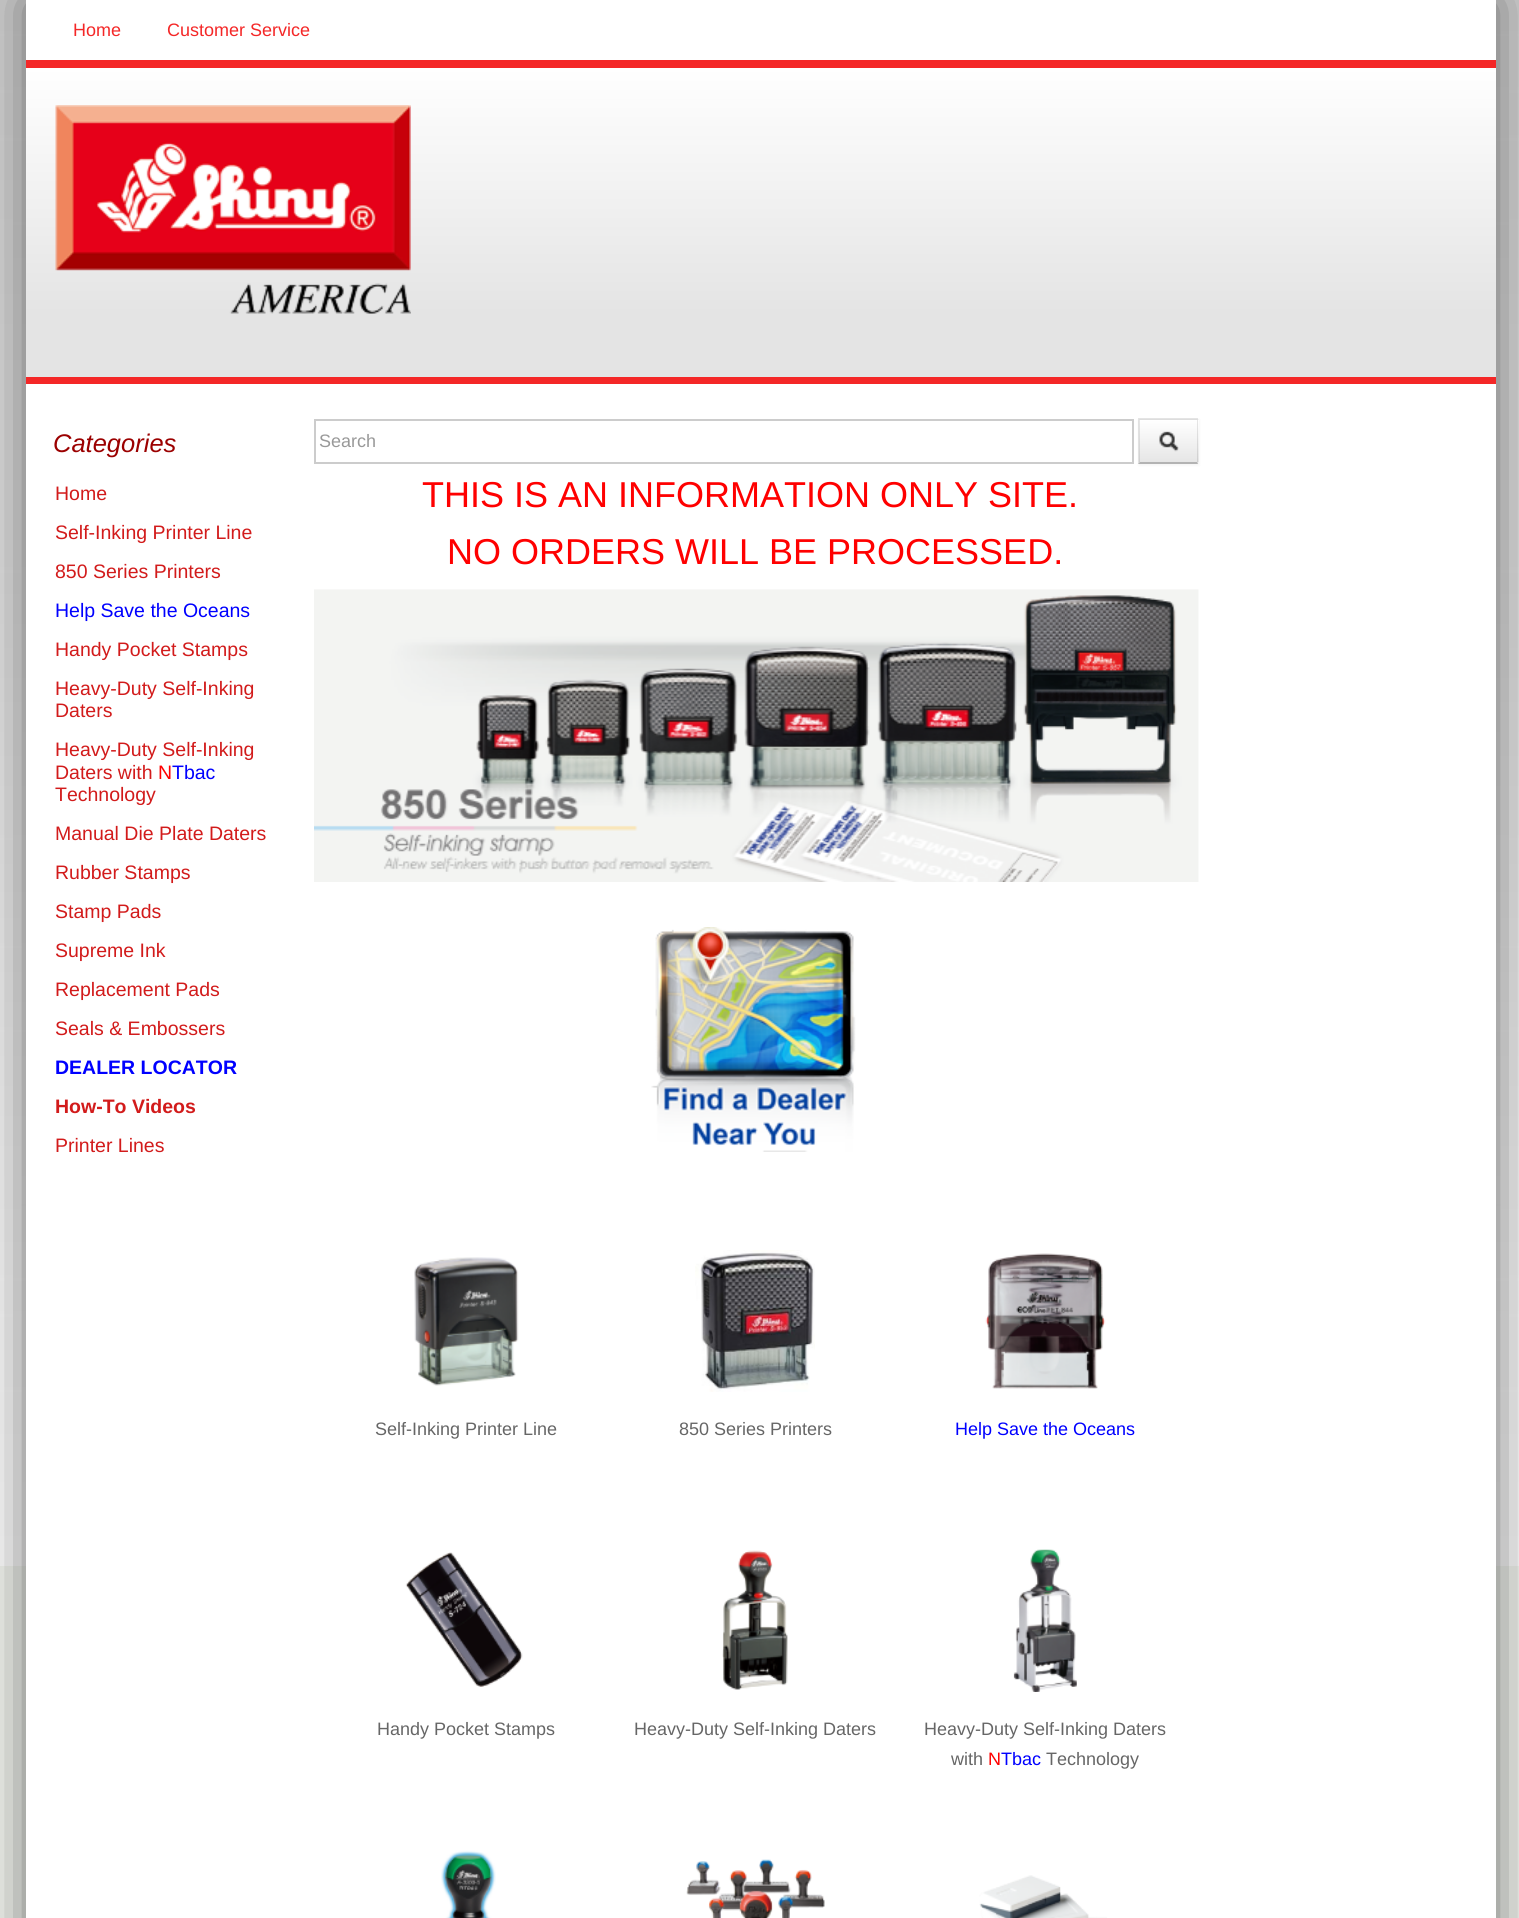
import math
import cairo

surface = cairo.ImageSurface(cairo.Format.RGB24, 1519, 1918)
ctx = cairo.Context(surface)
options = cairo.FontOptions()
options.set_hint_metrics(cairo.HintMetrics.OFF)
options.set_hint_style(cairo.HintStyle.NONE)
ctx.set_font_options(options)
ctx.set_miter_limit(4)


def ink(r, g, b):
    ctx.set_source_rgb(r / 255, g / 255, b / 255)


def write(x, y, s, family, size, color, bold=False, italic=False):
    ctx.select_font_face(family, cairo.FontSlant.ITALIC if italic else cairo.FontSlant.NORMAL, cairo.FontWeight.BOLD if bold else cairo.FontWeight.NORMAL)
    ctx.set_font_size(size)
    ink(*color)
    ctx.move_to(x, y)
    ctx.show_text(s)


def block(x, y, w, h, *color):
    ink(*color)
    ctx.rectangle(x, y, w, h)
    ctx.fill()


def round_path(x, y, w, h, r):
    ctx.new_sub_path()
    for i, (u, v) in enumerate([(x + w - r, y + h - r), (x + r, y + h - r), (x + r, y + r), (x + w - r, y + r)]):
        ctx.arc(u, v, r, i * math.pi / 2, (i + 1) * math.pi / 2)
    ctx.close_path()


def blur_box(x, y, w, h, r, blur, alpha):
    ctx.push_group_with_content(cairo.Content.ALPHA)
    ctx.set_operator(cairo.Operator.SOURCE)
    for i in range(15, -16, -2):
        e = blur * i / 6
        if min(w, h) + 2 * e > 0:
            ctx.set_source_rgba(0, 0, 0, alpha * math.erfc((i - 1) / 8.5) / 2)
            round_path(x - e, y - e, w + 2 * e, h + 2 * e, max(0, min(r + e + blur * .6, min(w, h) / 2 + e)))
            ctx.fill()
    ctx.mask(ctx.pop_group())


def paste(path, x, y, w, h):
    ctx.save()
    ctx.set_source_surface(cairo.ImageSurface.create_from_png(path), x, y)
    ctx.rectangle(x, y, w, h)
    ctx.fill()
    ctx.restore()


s1 = dict(family="Liberation Sans", size=18, color=(244, 39, 39))
s2 = dict(family="Liberation Sans", size=25.5, color=(155, 0, 0), italic=True)
s3 = dict(family="Liberation Sans", size=19.5, color=(210, 27, 27))
s4 = dict(family="Liberation Sans", size=19.5, color=(0, 0, 255))
s5 = dict(family="Liberation Sans", size=19.5, color=(255, 0, 0))
s6 = dict(family="Liberation Sans", size=19.5, color=(0, 0, 255), bold=True)
s7 = dict(family="Liberation Sans", size=19.5, color=(210, 27, 27), bold=True)
s8 = dict(family="Liberation Sans", size=36, color=(255, 0, 0))
s9 = dict(family="Liberation Sans", size=18, color=(102, 102, 102))
s10 = dict(family="Liberation Sans", size=18, color=(0, 0, 255))
s11 = dict(family="Liberation Sans", size=18, color=(255, 0, 0))
s12 = dict(family="Liberation Sans", size=18, color=(153, 153, 153))

ink(243, 246, 239)
ctx.paint()
paste("pic1.png", 0, 0, 1519, 1566)
ink(102, 102, 102)
blur_box(26, 0, 1470, 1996, 0, 26, 1)
block(26, 0, 1470, 60, 255, 255, 255)
block(26, 60, 1470, 8, 244, 39, 39)
write(73, 36, "Home", **s1)
write(167, 36, "Customer Service", **s1)
gradient = cairo.LinearGradient(761, 67, 761, 314)
gradient.add_color_stop_rgba(0, 1, 1, 1, 1)
gradient.add_color_stop_rgba(1, 0.894, 0.894, 0.894, 1)
ctx.set_source(gradient)
ctx.rectangle(26, 68, 1470, 246)
ctx.fill()
paste("pic2.png", 55, 105, 356, 209)
block(26, 314, 1470, 63, 228, 228, 228)
block(26, 384, 1470, 1534, 255, 255, 255)
block(26, 377, 1470, 7, 244, 39, 39)
write(53, 452, "Categories", **s2)
write(55, 500, "Home", **s3)
write(55, 539, "Self-Inking Printer Line", **s3)
write(55, 578, "850 Series Printers", **s3)
write(55, 617, "Help Save the Oceans", **s4)
write(55, 656, "Handy Pocket Stamps", **s3)
write(55, 695, "Heavy-Duty Self-Inking", **s3)
write(55, 717, "Daters", **s3)
write(55, 756, "Heavy-Duty Self-Inking", **s3)
write(55, 779, "Daters with", **s3)
write(158, 779, "N", **s5)
write(172, 779, "Tbac", **s4)
write(55, 801, "Technology", **s3)
write(55, 840, "Manual Die Plate Daters", **s3)
write(55, 879, "Rubber Stamps", **s3)
write(55, 918, "Stamp Pads", **s3)
write(55, 957, "Supreme Ink", **s3)
write(55, 996, "Replacement Pads", **s3)
write(55, 1035, "Seals & Embossers", **s3)
write(55, 1074, "DEALER LOCATOR", **s6)
write(55, 1113, "How-To Videos", **s7)
write(55, 1152, "Printer Lines", **s3)
write(422, 507, "THIS IS AN INFORMATION ONLY SITE.", **s8)
write(447, 564, "NO ORDERS WILL BE PROCESSED.", **s8)
paste("pic3.png", 314, 589, 885, 293)
paste("pic4.png", 651, 927, 205, 225)
paste("pic5.png", 414, 1257, 105, 129)
write(375, 1435, "Self-Inking Printer Line", **s9)
paste("pic6.png", 695, 1250, 120, 142)
write(679, 1435, "850 Series Printers", **s9)
paste("pic7.png", 985, 1253, 121, 136)
write(955, 1435, "Help Save the Oceans", **s10)
paste("pic8.png", 405, 1552, 118, 135)
write(377, 1735, "Handy Pocket Stamps", **s9)
paste("pic9.png", 722, 1550, 66, 140)
write(634, 1735, "Heavy-Duty Self-Inking Daters", **s9)
paste("pic10.png", 1013, 1549, 64, 143)
write(924, 1735, "Heavy-Duty Self-Inking Daters", **s9)
write(951, 1765, "with", **s9)
write(988, 1765, "N", **s11)
write(1001, 1765, "Tbac", **s10)
write(1046, 1765, "Technology", **s9)
paste("pic11.png", 441, 1850, 55, 68)
paste("pic12.png", 686, 1859, 139, 59)
paste("pic13.png", 979, 1875, 128, 43)
ctx.rectangle(315, 420, 818, 43)
ink(204, 204, 204)
ctx.stroke()
write(319, 447, "Search", **s12)
ink(0, 0, 0)
blur_box(1139, 420, 60, 45, 0, 1.5, 0.05)
block(1139, 419, 60, 45, 245, 245, 245)
gradient = cairo.LinearGradient(1169, 420, 1169, 462)
gradient.add_color_stop_rgba(0, 1, 1, 1, 1)
gradient.add_color_stop_rgba(1, 0.902, 0.902, 0.902, 1)
ctx.set_source(gradient)
ctx.rectangle(1139, 420, 60, 42)
ctx.fill()
ctx.set_source_rgba(0, 0, 0, 0.1)
ctx.new_path()
ctx.move_to(1138, 418)
ctx.line_to(1198, 418)
ctx.line_to(1197, 420)
ctx.line_to(1140, 420)
ctx.close_path()
ctx.fill()
ctx.new_path()
ctx.move_to(1198, 418)
ctx.line_to(1198, 464)
ctx.line_to(1197, 462)
ctx.line_to(1197, 420)
ctx.close_path()
ctx.fill()
ink(179, 179, 179)
ctx.new_path()
ctx.move_to(1198, 464)
ctx.line_to(1138, 464)
ctx.line_to(1140, 462)
ctx.line_to(1197, 462)
ctx.close_path()
ctx.fill()
ctx.set_source_rgba(0, 0, 0, 0.1)
ctx.new_path()
ctx.move_to(1138, 464)
ctx.line_to(1138, 418)
ctx.line_to(1140, 420)
ctx.line_to(1140, 462)
ctx.close_path()
ctx.fill()
paste("pic14.png", 1159, 431, 20, 21)
surface.write_to_png("screenshot.png")
